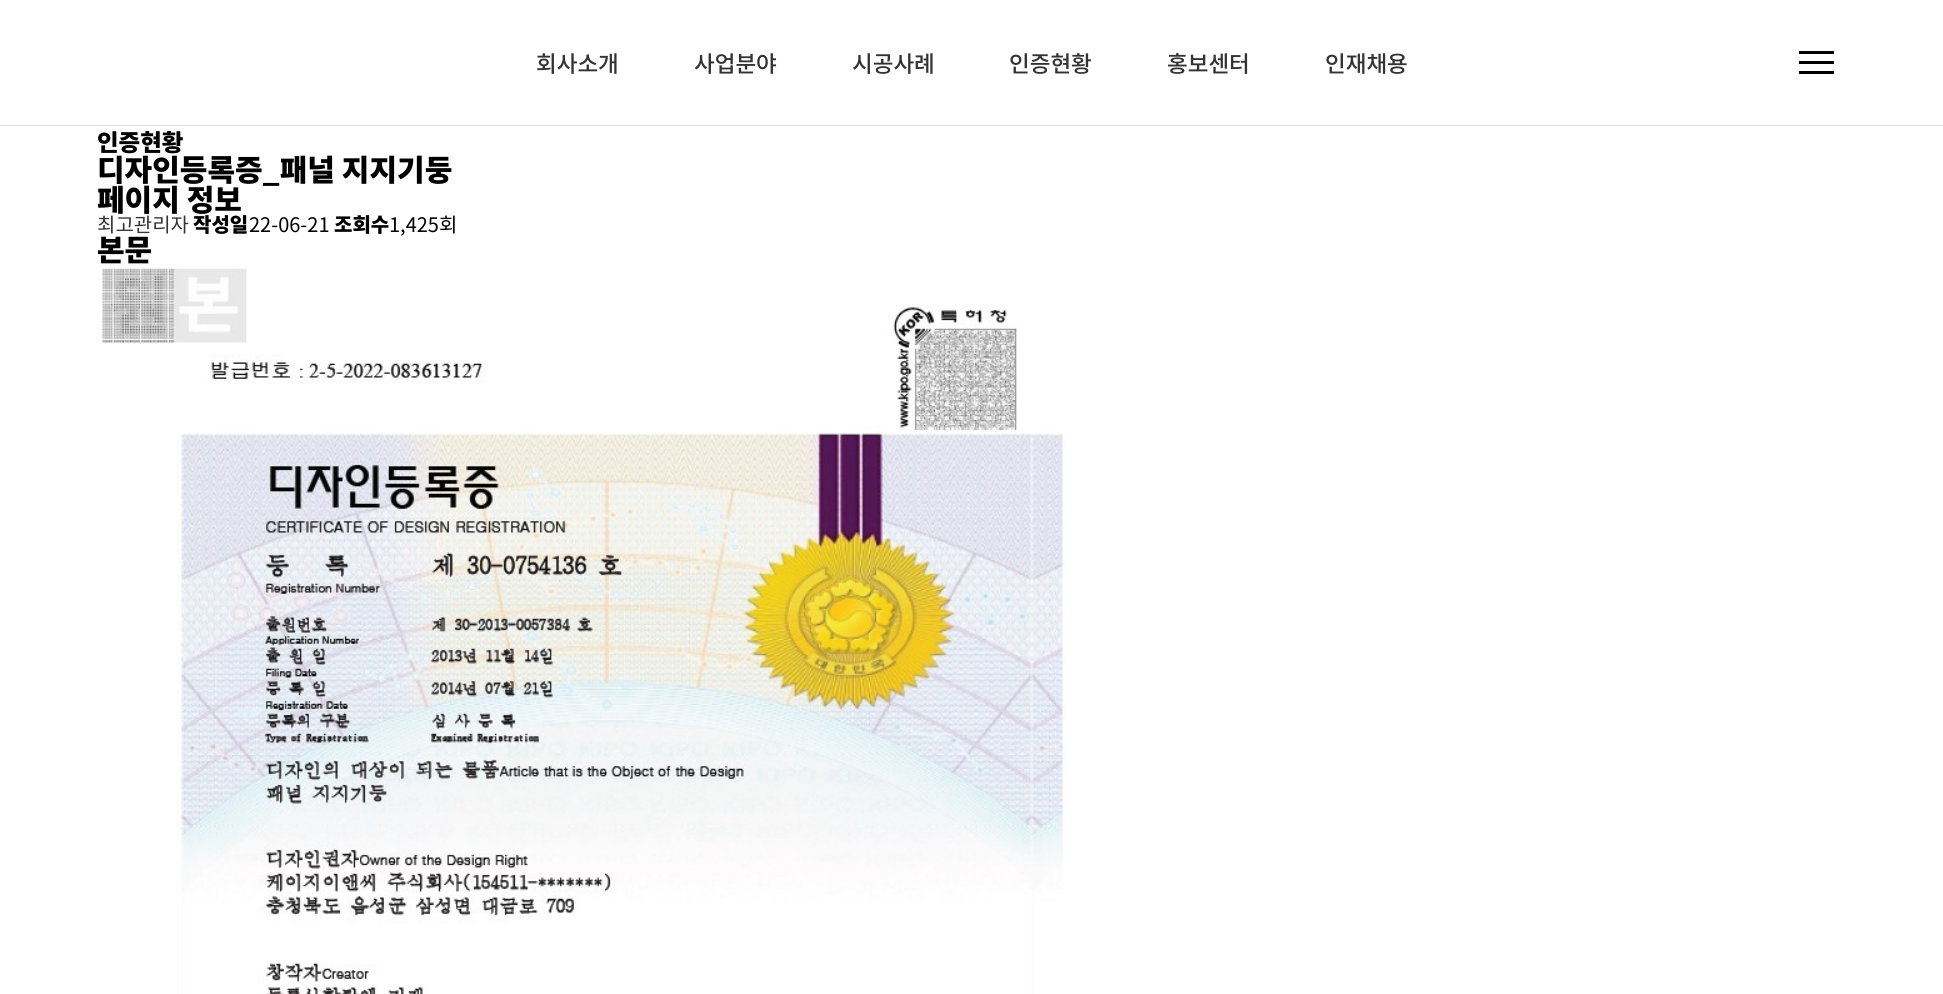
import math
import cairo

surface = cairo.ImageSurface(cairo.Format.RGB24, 1943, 994)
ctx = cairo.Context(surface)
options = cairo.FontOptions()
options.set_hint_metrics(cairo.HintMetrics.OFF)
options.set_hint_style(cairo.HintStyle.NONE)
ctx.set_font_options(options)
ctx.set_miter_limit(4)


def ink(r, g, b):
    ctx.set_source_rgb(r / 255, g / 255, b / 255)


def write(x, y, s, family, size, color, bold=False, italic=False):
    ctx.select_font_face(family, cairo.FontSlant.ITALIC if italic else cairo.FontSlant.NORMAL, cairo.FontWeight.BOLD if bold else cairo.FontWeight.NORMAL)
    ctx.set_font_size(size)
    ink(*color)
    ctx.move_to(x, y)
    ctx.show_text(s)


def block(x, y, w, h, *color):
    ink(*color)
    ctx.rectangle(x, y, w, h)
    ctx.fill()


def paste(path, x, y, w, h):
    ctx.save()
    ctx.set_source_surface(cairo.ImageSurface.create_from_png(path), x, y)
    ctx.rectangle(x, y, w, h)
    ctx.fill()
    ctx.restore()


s1 = dict(family="Noto Sans KR Medium", size=22.5, color=(51, 51, 51))
s2 = dict(family="Noto Sans KR Black", size=23.5, color=(0, 0, 0))
s3 = dict(family="Noto Sans KR Black", size=30, color=(0, 0, 0))
s4 = dict(family="Noto Sans KR", size=20, color=(51, 51, 51))
s5 = dict(family="Noto Sans KR Black", size=20, color=(0, 0, 0))
s6 = dict(family="Noto Sans KR", size=20, color=(0, 0, 0))

ink(255, 255, 255)
ctx.paint()
block(0, 125, 1943, 1, 221, 221, 221)
write(536, 72, "회사소개", **s1)
write(694, 72, "사업분야", **s1)
write(852, 72, "시공사례", **s1)
write(1009, 72, "인증현황", **s1)
write(1167, 72, "홍보센터", **s1)
write(1325, 72, "인재채용", **s1)
block(1799, 51, 35, 3, 0, 0, 0)
block(1799, 61, 35, 3, 0, 0, 0)
block(1799, 71, 35, 3, 0, 0, 0)
write(97, 151, "인증현황", **s2)
write(97, 181, "디자인등록증_패널 지지기둥", **s3)
write(97, 211, "페이지 정보", **s3)
write(97, 232, "최고관리자", **s4)
write(193, 232, "작성일", **s5)
write(249, 232, "22-06-21", **s6)
write(334, 232, "조회수", **s5)
write(389, 232, "1,425회", **s6)
write(97, 261, "본문", **s3)
paste("pic1.png", 98, 263, 969, 731)
surface.write_to_png("screenshot.png")
